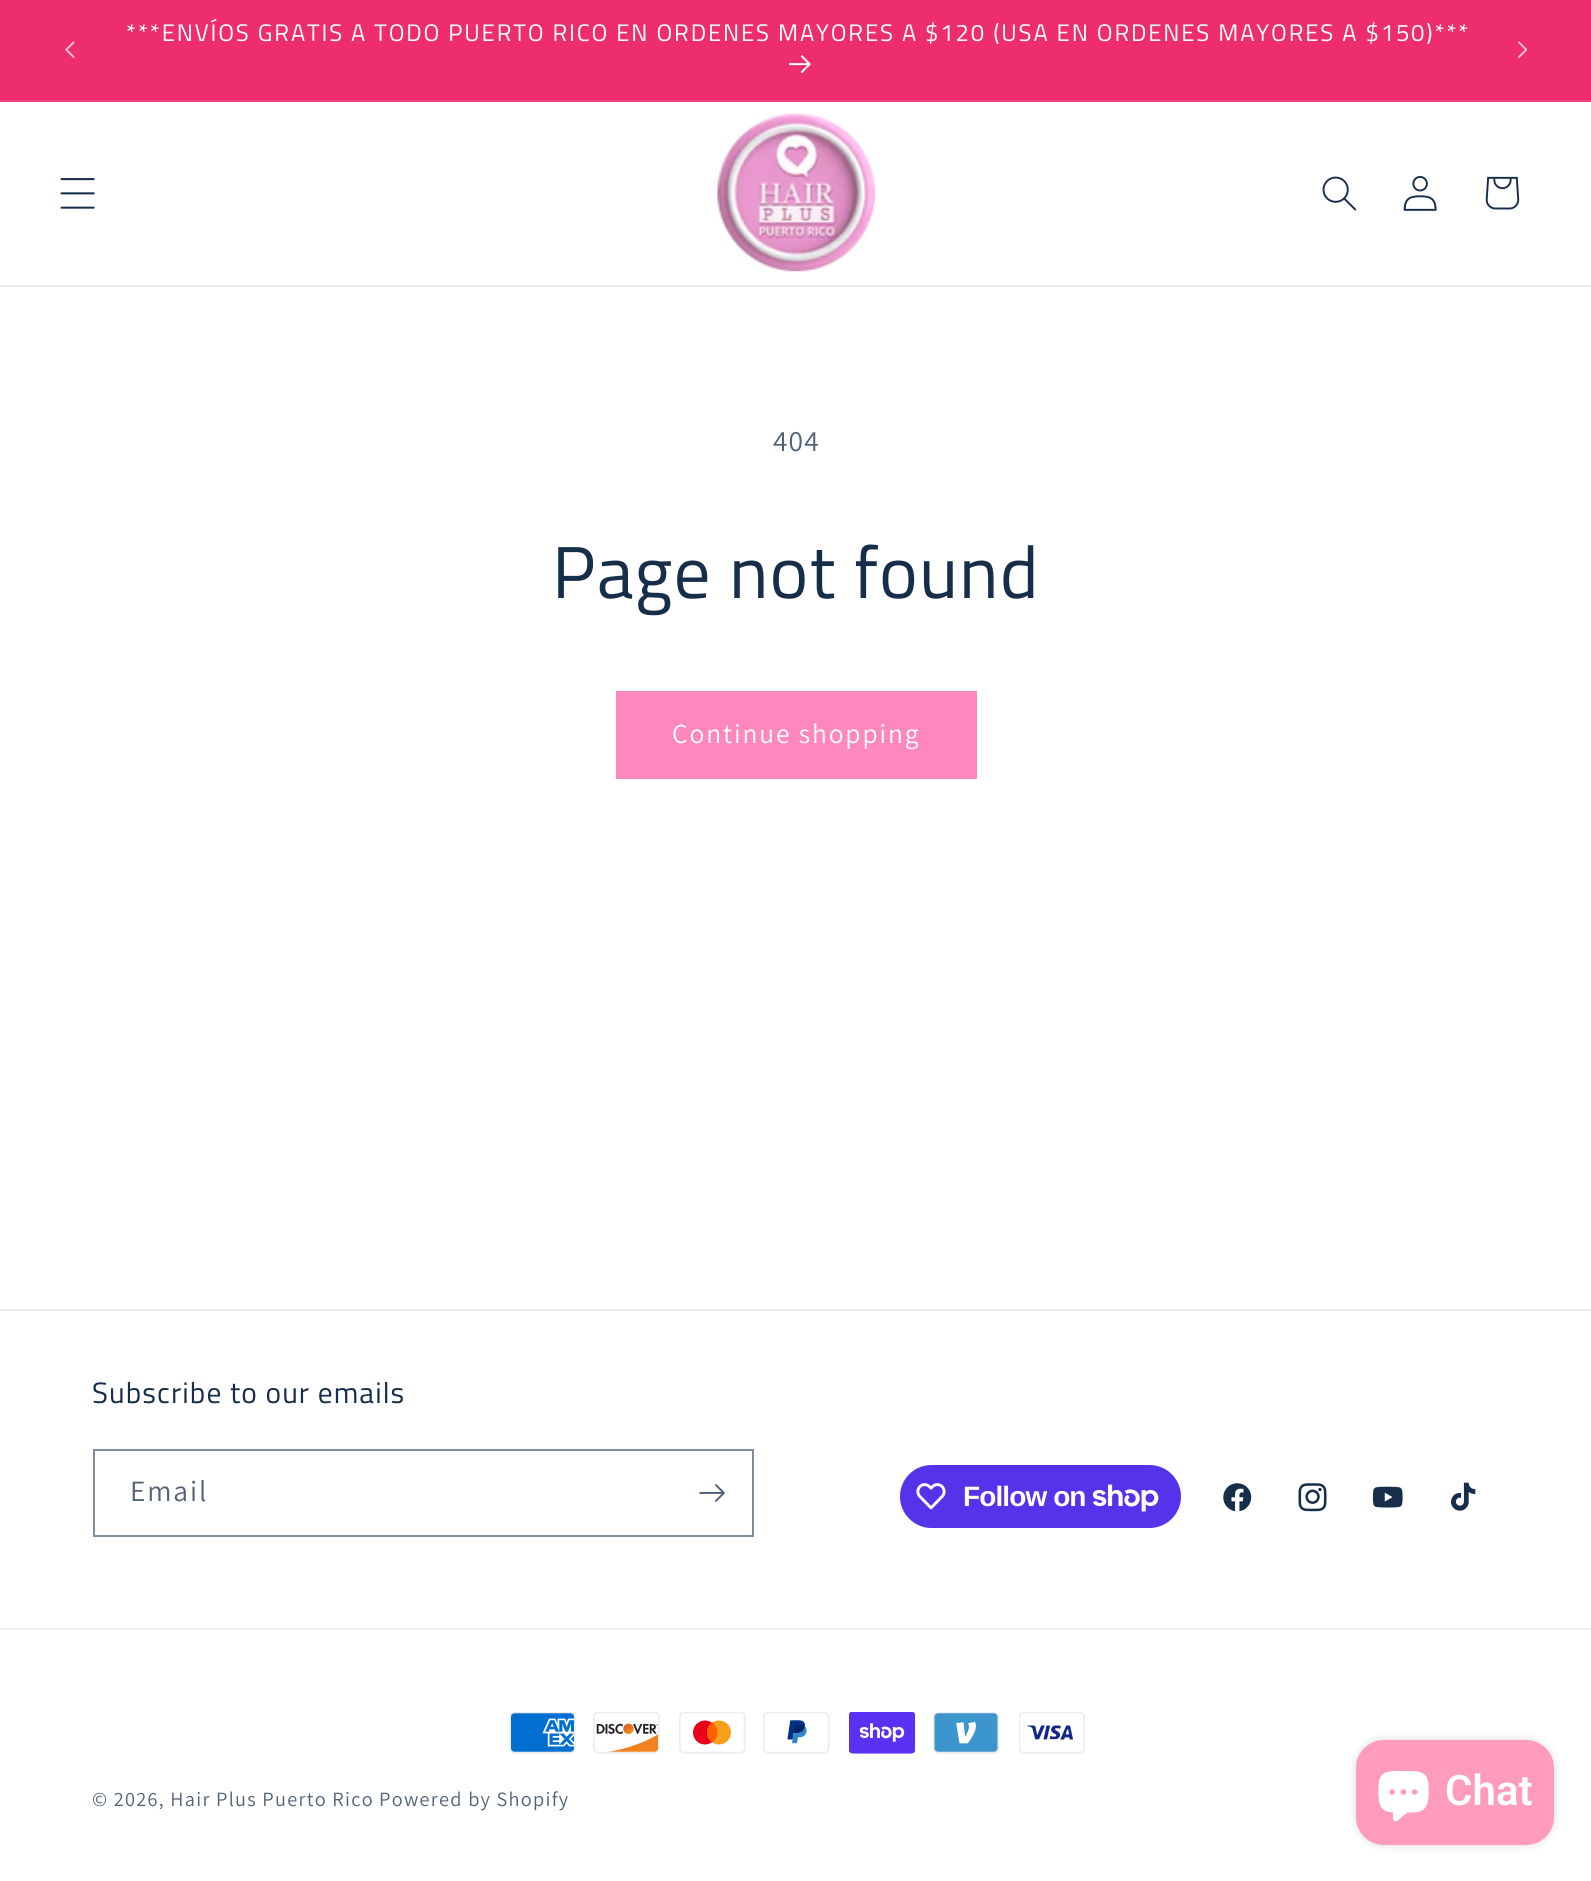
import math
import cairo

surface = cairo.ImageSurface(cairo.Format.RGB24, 1591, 1881)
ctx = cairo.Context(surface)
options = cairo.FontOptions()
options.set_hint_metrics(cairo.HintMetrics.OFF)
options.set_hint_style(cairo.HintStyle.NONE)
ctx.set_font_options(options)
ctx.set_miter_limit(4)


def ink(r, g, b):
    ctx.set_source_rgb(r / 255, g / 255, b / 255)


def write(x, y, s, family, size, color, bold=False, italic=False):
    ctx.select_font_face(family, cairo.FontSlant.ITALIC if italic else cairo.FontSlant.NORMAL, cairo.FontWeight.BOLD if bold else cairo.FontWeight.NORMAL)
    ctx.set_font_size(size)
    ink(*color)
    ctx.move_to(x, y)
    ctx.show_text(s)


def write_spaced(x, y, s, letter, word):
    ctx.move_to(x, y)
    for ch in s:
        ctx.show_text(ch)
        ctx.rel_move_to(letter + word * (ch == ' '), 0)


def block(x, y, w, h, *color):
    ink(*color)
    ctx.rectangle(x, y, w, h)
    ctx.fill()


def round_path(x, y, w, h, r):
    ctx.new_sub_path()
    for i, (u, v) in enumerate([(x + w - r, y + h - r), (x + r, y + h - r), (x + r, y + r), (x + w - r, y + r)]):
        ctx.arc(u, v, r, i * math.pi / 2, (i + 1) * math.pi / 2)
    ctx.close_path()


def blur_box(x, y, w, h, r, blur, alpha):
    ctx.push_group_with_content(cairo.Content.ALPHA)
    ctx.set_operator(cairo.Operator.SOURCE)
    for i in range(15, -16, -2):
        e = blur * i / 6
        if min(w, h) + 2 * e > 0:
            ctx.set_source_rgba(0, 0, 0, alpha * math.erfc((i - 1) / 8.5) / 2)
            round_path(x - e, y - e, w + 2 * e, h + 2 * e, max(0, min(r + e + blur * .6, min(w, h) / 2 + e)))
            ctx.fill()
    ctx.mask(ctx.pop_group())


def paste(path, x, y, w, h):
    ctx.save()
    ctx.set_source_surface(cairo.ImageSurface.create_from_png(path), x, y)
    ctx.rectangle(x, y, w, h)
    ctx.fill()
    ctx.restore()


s1 = dict(family="Roboto SemiBold", size=42, color=(255, 255, 255))

ink(255, 255, 255)
ctx.paint()
block(0, 0, 1591, 100, 237, 45, 108)
block(0, 100, 1591, 2, 238, 62, 120)
ctx.select_font_face("Titillium Web")
ctx.set_font_size(23.9)
ink(255, 255, 255)
write_spaced(126, 41, "***ENVÍOS GRATIS A TODO PUERTO RICO EN ORDENES MAYORES A $120 (USA EN ORDENES MAYORES A $150)***", 1.85, 0)
paste("pic1.png", 789, 55, 22, 18)
paste("pic2.png", 65, 41, 10, 17)
paste("pic3.png", 1518, 41, 10, 17)
block(0, 285, 1591, 2, 236, 238, 241)
paste("pic4.png", 60, 178, 35, 31)
paste("pic5.png", 717, 113, 158, 159)
paste("pic6.png", 1322, 176, 35, 35)
paste("pic7.png", 1403, 176, 34, 35)
paste("pic8.png", 1485, 176, 35, 34)
ctx.select_font_face("Assistant")
ctx.set_font_size(29.4)
ink(81, 98, 119)
write_spaced(773, 451, "404", 1.1, 0)
ctx.select_font_face("Titillium Web")
ctx.set_font_size(73.5)
ink(23, 46, 74)
write_spaced(552, 598, "Page not found", 1.1, 0)
block(616, 691, 361, 88, 254, 136, 189)
ctx.select_font_face("Assistant")
ctx.set_font_size(27.5)
ink(255, 255, 255)
write_spaced(672, 743, "Continue shopping", 1.85, 0)
block(0, 1309, 1591, 2, 236, 238, 241)
ctx.select_font_face("Titillium Web")
ctx.set_font_size(29.4)
ink(23, 46, 74)
write_spaced(92, 1403, "Subscribe to our emails", 1.1, 0)
ctx.rectangle(94, 1450, 659, 86)
ink(127, 140, 155)
ctx.stroke()
ctx.select_font_face("Assistant")
ink(81, 98, 119)
write_spaced(130, 1501, "Email", 1.85, 0)
paste("pic9.png", 699, 1484, 26, 18)
ink(84, 51, 235)
round_path(900, 1465, 281, 63, 31.5)
ctx.fill()
paste("pic10.png", 916, 1483, 30, 27)
ctx.select_font_face("Liberation Sans", cairo.FontSlant.NORMAL, cairo.FontWeight.BOLD)
ctx.set_font_size(28)
ink(255, 255, 255)
write_spaced(963, 1506, "Follow on", -0.9, 0)
paste("pic11.png", 1092, 1484, 67, 28)
paste("pic12.png", 1223, 1483, 29, 29)
paste("pic13.png", 1298, 1483, 29, 29)
paste("pic14.png", 1372, 1486, 31, 22)
paste("pic15.png", 1451, 1482, 25, 29)
block(0, 1628, 1591, 2, 236, 238, 241)
paste("pic16.png", 509, 1712, 67, 42)
paste("pic17.png", 593, 1712, 67, 42)
paste("pic18.png", 679, 1712, 67, 42)
paste("pic19.png", 763, 1712, 67, 42)
paste("pic20.png", 849, 1712, 66, 42)
paste("pic21.png", 933, 1712, 66, 42)
paste("pic22.png", 1019, 1712, 66, 42)
ctx.select_font_face("Assistant")
ctx.set_font_size(20.25)
ink(81, 98, 119)
write_spaced(92, 1806, "© 2026, Hair Plus Puerto Rico", 1.3, 0)
write_spaced(379, 1806, "Powered by Shopify", 1.3, 0)
ink(0, 0, 0)
blur_box(1356, 1740, 198, 105, 28, 4.5, 0.15)
ink(255, 156, 189)
round_path(1356, 1740, 198, 105, 28)
ctx.fill()
paste("pic23.png", 1378, 1771, 51, 51)
write(1445, 1805, "Chat", **s1)
surface.write_to_png("screenshot.png")
